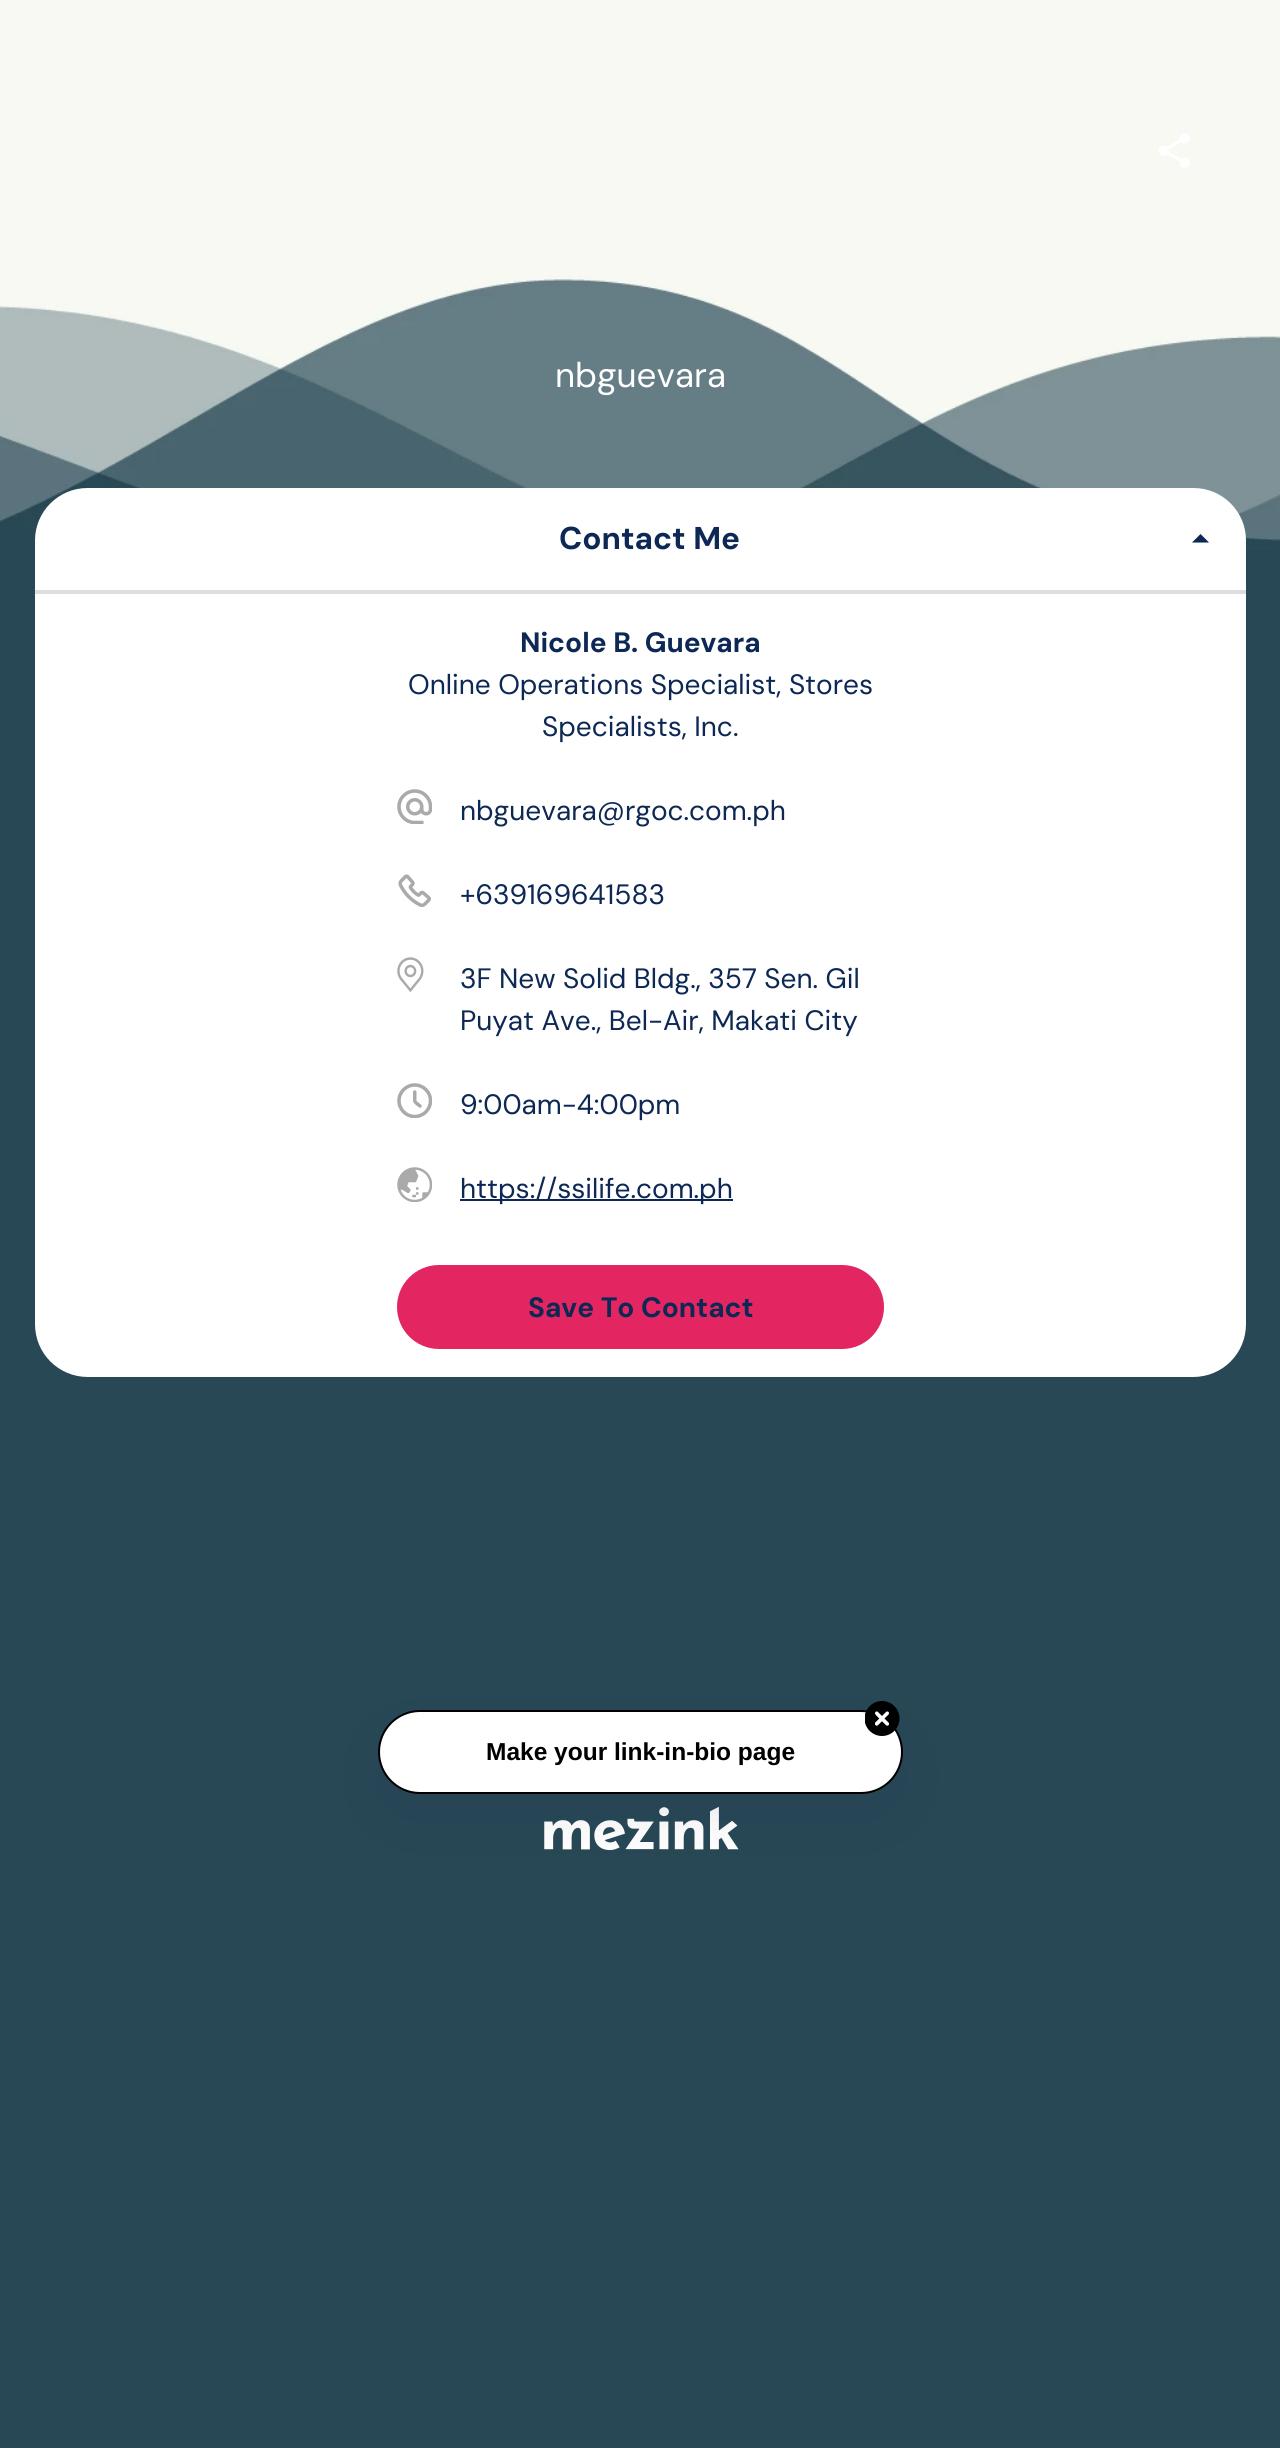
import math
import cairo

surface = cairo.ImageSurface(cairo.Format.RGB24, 1280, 2448)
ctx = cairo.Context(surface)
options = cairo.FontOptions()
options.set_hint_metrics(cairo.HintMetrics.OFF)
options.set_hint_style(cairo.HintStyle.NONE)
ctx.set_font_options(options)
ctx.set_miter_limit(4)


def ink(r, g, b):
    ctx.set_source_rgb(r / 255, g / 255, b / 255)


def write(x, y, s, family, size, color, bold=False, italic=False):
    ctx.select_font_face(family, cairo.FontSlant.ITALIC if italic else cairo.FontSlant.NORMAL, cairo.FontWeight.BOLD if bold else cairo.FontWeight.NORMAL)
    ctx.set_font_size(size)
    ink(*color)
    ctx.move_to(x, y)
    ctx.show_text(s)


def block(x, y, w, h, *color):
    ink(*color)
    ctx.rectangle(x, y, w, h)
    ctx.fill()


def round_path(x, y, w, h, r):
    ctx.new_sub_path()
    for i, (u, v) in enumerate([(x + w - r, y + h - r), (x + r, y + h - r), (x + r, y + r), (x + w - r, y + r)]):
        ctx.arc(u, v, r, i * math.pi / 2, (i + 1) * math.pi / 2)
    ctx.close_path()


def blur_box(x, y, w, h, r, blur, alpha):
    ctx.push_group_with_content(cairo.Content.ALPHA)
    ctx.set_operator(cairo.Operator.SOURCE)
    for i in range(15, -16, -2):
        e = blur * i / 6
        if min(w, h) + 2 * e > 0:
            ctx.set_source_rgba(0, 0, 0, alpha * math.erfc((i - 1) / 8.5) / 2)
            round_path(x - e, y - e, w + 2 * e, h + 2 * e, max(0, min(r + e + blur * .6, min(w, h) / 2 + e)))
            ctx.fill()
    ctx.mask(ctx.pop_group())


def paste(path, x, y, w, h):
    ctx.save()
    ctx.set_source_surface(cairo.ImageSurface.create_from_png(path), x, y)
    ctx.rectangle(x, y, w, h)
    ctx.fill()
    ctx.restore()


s1 = dict(family="DM Sans", size=35, color=(255, 255, 255))
s2 = dict(family="DM Sans", size=31.5, color=(13, 40, 84), bold=True)
s3 = dict(family="DM Sans", size=28, color=(13, 40, 84), bold=True)
s4 = dict(family="DM Sans", size=28, color=(13, 40, 84))
s5 = dict(family="Arimo", size=24.5, color=(0, 0, 0), bold=True)

ink(255, 255, 255)
ctx.paint()
paste("pic1.png", 0, 0, 1280, 2448)
paste("pic2.png", 1158, 133, 32, 35)
write(555, 387, "nbguevara", **s1)
ctx.new_path()
ctx.move_to(87.5, 488)
ctx.line_to(1193.5, 488)
ctx.curve_to(1222.5, 488, 1246, 511.5, 1246, 540.5)
ctx.line_to(1246, 593)
ctx.line_to(35, 593)
ctx.line_to(35, 540.5)
ctx.curve_to(35, 511.5, 58.5, 488, 87.5, 488)
ctx.close_path()
ctx.fill()
ctx.new_path()
ctx.move_to(35, 593)
ctx.line_to(1246, 593)
ctx.line_to(1246, 1324)
ctx.curve_to(1246, 1353.5, 1222.5, 1377, 1193, 1377)
ctx.line_to(88, 1377)
ctx.curve_to(58.5, 1377, 35, 1353.5, 35, 1324)
ctx.close_path()
ctx.fill()
block(35, 590, 1211, 4, 222, 222, 226)
write(559, 549, "Contact Me", **s2)
ctx.new_path()
ctx.move_to(1192, 542.5)
ctx.line_to(1200.5, 534)
ctx.line_to(1209, 542.5)
ctx.close_path()
ctx.fill()
write(520, 652, "Nicole B. Guevara", **s3)
write(408, 694, "Online Operations Specialist, Stores", **s4)
write(542, 736, "Specialists, Inc.", **s4)
paste("pic3.png", 397, 789, 35, 35)
write(460, 820, "nbguevara@rgoc.com.ph", **s4)
paste("pic4.png", 398, 874, 33, 33)
write(460, 904, "+639169641583", **s4)
paste("pic5.png", 397, 957, 27, 36)
write(460, 988, "3F New Solid Bldg., 357 Sen. Gil", **s4)
write(460, 1030, "Puyat Ave., Bel-Air, Makati City", **s4)
paste("pic6.png", 397, 1083, 35, 35)
write(460, 1114, "9:00am-4:00pm", **s4)
paste("pic7.png", 397, 1167, 35, 35)
block(460, 1199, 273, 2, 13, 40, 84)
write(460, 1198, "https://ssilife.com.ph", **s4)
ink(227, 38, 98)
round_path(397, 1265, 487, 84, 42)
ctx.fill()
write(528, 1317, "Save To Contact", **s3)
paste("pic9.png", 544, 1806, 195, 45)
ink(25, 31, 61)
blur_box(378, 1734, 525, 84, 42, 24, 0.1)
ink(255, 255, 255)
round_path(379, 1711, 523, 82, 41)
ctx.fill_preserve()
ink(0, 0, 0)
ctx.stroke()
paste("pic8.png", 865, 1701, 35, 35)
write(486, 1760, "Make your link-in-bio page", **s5)
surface.write_to_png("screenshot.png")
